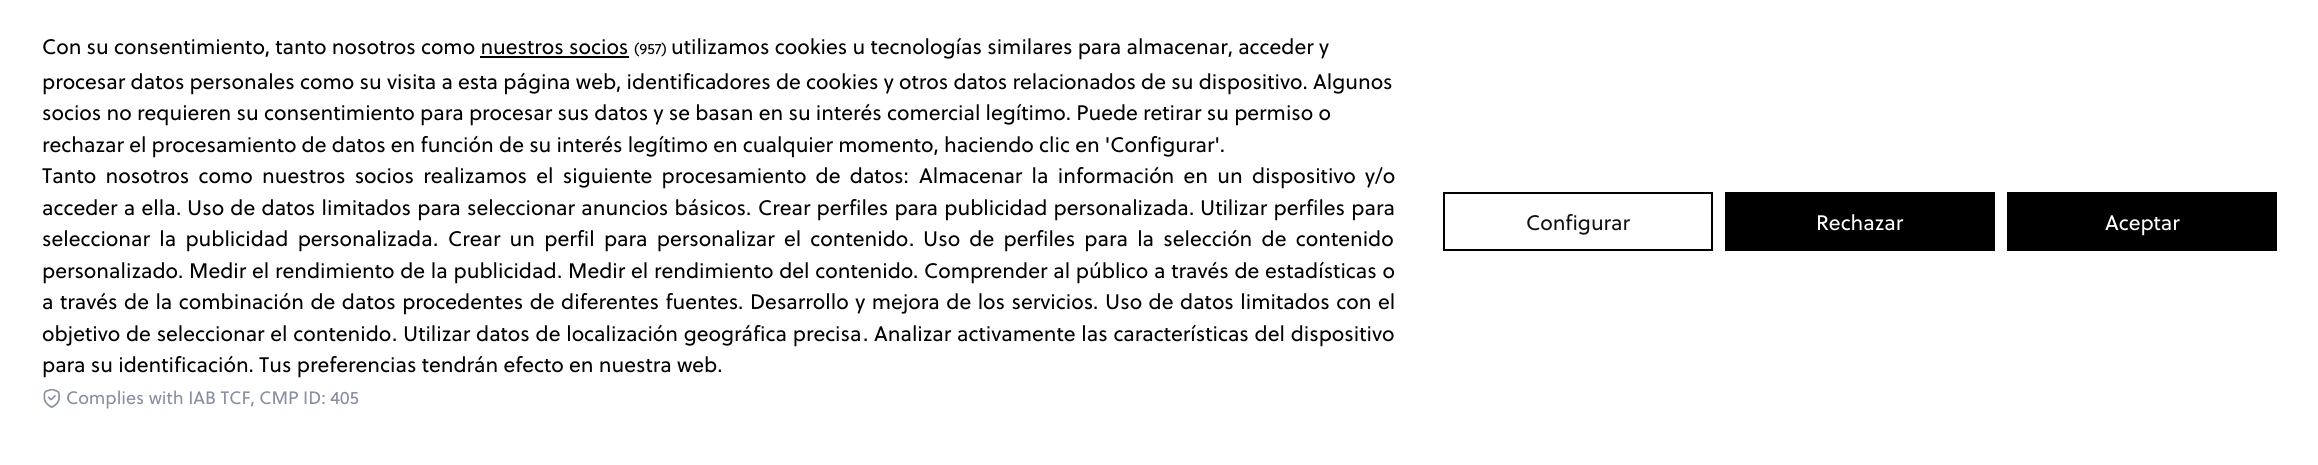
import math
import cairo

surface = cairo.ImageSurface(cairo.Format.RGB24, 2318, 465)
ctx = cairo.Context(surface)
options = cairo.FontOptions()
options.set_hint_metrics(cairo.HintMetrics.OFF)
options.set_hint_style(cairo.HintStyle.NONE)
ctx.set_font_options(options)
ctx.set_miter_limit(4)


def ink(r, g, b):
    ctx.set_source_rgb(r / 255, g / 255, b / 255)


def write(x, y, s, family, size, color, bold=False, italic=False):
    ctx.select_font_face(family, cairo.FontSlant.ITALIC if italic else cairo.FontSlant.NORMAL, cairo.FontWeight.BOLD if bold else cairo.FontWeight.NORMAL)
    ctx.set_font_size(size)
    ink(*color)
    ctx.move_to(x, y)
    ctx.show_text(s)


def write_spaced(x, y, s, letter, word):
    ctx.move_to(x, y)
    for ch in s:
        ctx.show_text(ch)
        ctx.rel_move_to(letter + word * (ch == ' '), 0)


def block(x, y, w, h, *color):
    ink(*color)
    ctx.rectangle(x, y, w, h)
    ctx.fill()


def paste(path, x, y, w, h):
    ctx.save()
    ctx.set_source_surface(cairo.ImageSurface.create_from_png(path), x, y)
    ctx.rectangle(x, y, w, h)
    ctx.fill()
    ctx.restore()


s1 = dict(family="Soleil", size=21, color=(0, 0, 0))
s2 = dict(family="Soleil", size=15, color=(0, 0, 0))
s3 = dict(family="Soleil", size=18, color=(133, 143, 160))
s4 = dict(family="Soleil", size=21, color=(17, 17, 17))
s5 = dict(family="Soleil", size=21, color=(255, 255, 255))

ink(255, 255, 255)
ctx.paint()
write(42, 54, "Con su consentimiento, tanto nosotros como nuestros socios", **s1)
write(634, 54, "(957)", **s2)
write(671, 54, "utilizamos cookies u tecnologías similares para almacenar, acceder y", **s1)
block(480, 56, 149, 2, 0, 0, 0)
write(42, 89, "procesar datos personales como su visita a esta página web, identificadores de cookies y otros datos relacionados de su dispositivo. Algunos", **s1)
write(42, 120, "socios no requieren su consentimiento para procesar sus datos y se basan en su interés comercial legítimo. Puede retirar su permiso o", **s1)
write(42, 152, "rechazar el procesamiento de datos en función de su interés legítimo en cualquier momento, haciendo clic en 'Configurar'.", **s1)
write_spaced(42, 183, "Tanto nosotros como nuestros socios realizamos el siguiente procesamiento de datos:", 0, 4)
write_spaced(919, 183, "Almacenar la información en un dispositivo y/o", 0, 4)
write_spaced(42, 215, "acceder a ella", 0, 1)
write(176, 215, ".", **s1)
write_spaced(187, 215, "Uso de datos limitados para seleccionar anuncios básicos", 0, 1)
write(746, 215, ".", **s1)
write_spaced(758, 215, "Crear perfiles para publicidad personalizada", 0, 1)
write(1189, 215, ".", **s1)
write_spaced(1200, 215, "Utilizar perfiles para", 0, 1)
write_spaced(42, 246, "seleccionar la publicidad personalizada", 0, 4)
write(433, 246, ".", **s1)
write_spaced(448, 246, "Crear un perfil para personalizar el contenido", 0, 4)
write(909, 246, ".", **s1)
write_spaced(923, 246, "Uso de perfiles para la selección de contenido", 0, 4)
write(42, 278, "personalizado.", **s1)
write_spaced(189, 278, "Medir el rendimiento de la publicidad", 0, 0.5)
write(557, 278, ".", **s1)
write_spaced(568, 278, "Medir el rendimiento del contenido", 0, 0.5)
write(913, 278, ".", **s1)
write_spaced(924, 278, "Comprender al público a través de estadísticas o", 0, 0.5)
write_spaced(42, 309, "a través de la combinación de datos procedentes de diferentes fuentes", 0, 1.25)
write(738, 309, ".", **s1)
write_spaced(750, 309, "Desarrollo y mejora de los servicios", 0, 1.25)
write(1093, 309, ".", **s1)
write_spaced(1105, 309, "Uso de datos limitados con el", 0, 1.25)
write_spaced(42, 341, "objetivo de seleccionar el contenido", 0, 0.5)
write(392, 341, ".", **s1)
write_spaced(403, 341, "Utilizar datos de localización geográfica precisa", 0, 0.5)
write(863, 341, ".", **s1)
write_spaced(874, 341, "Analizar activamente las características del dispositivo", 0, 0.5)
write(42, 372, "para su identificación. Tus preferencias tendrán efecto en nuestra web.", **s1)
paste("pic1.png", 43, 389, 17, 19)
write(66, 404, "Complies with IAB TCF, CMP ID: 405", **s3)
ctx.rectangle(1444, 193, 268, 57)
ink(0, 0, 0)
ctx.stroke()
write(1526, 230, "Configurar", **s4)
block(1725, 192, 270, 59, 0, 0, 0)
write(1816, 230, "Rechazar", **s5)
block(2007, 192, 270, 59, 0, 0, 0)
write(2105, 230, "Aceptar", **s5)
surface.write_to_png("screenshot.png")
